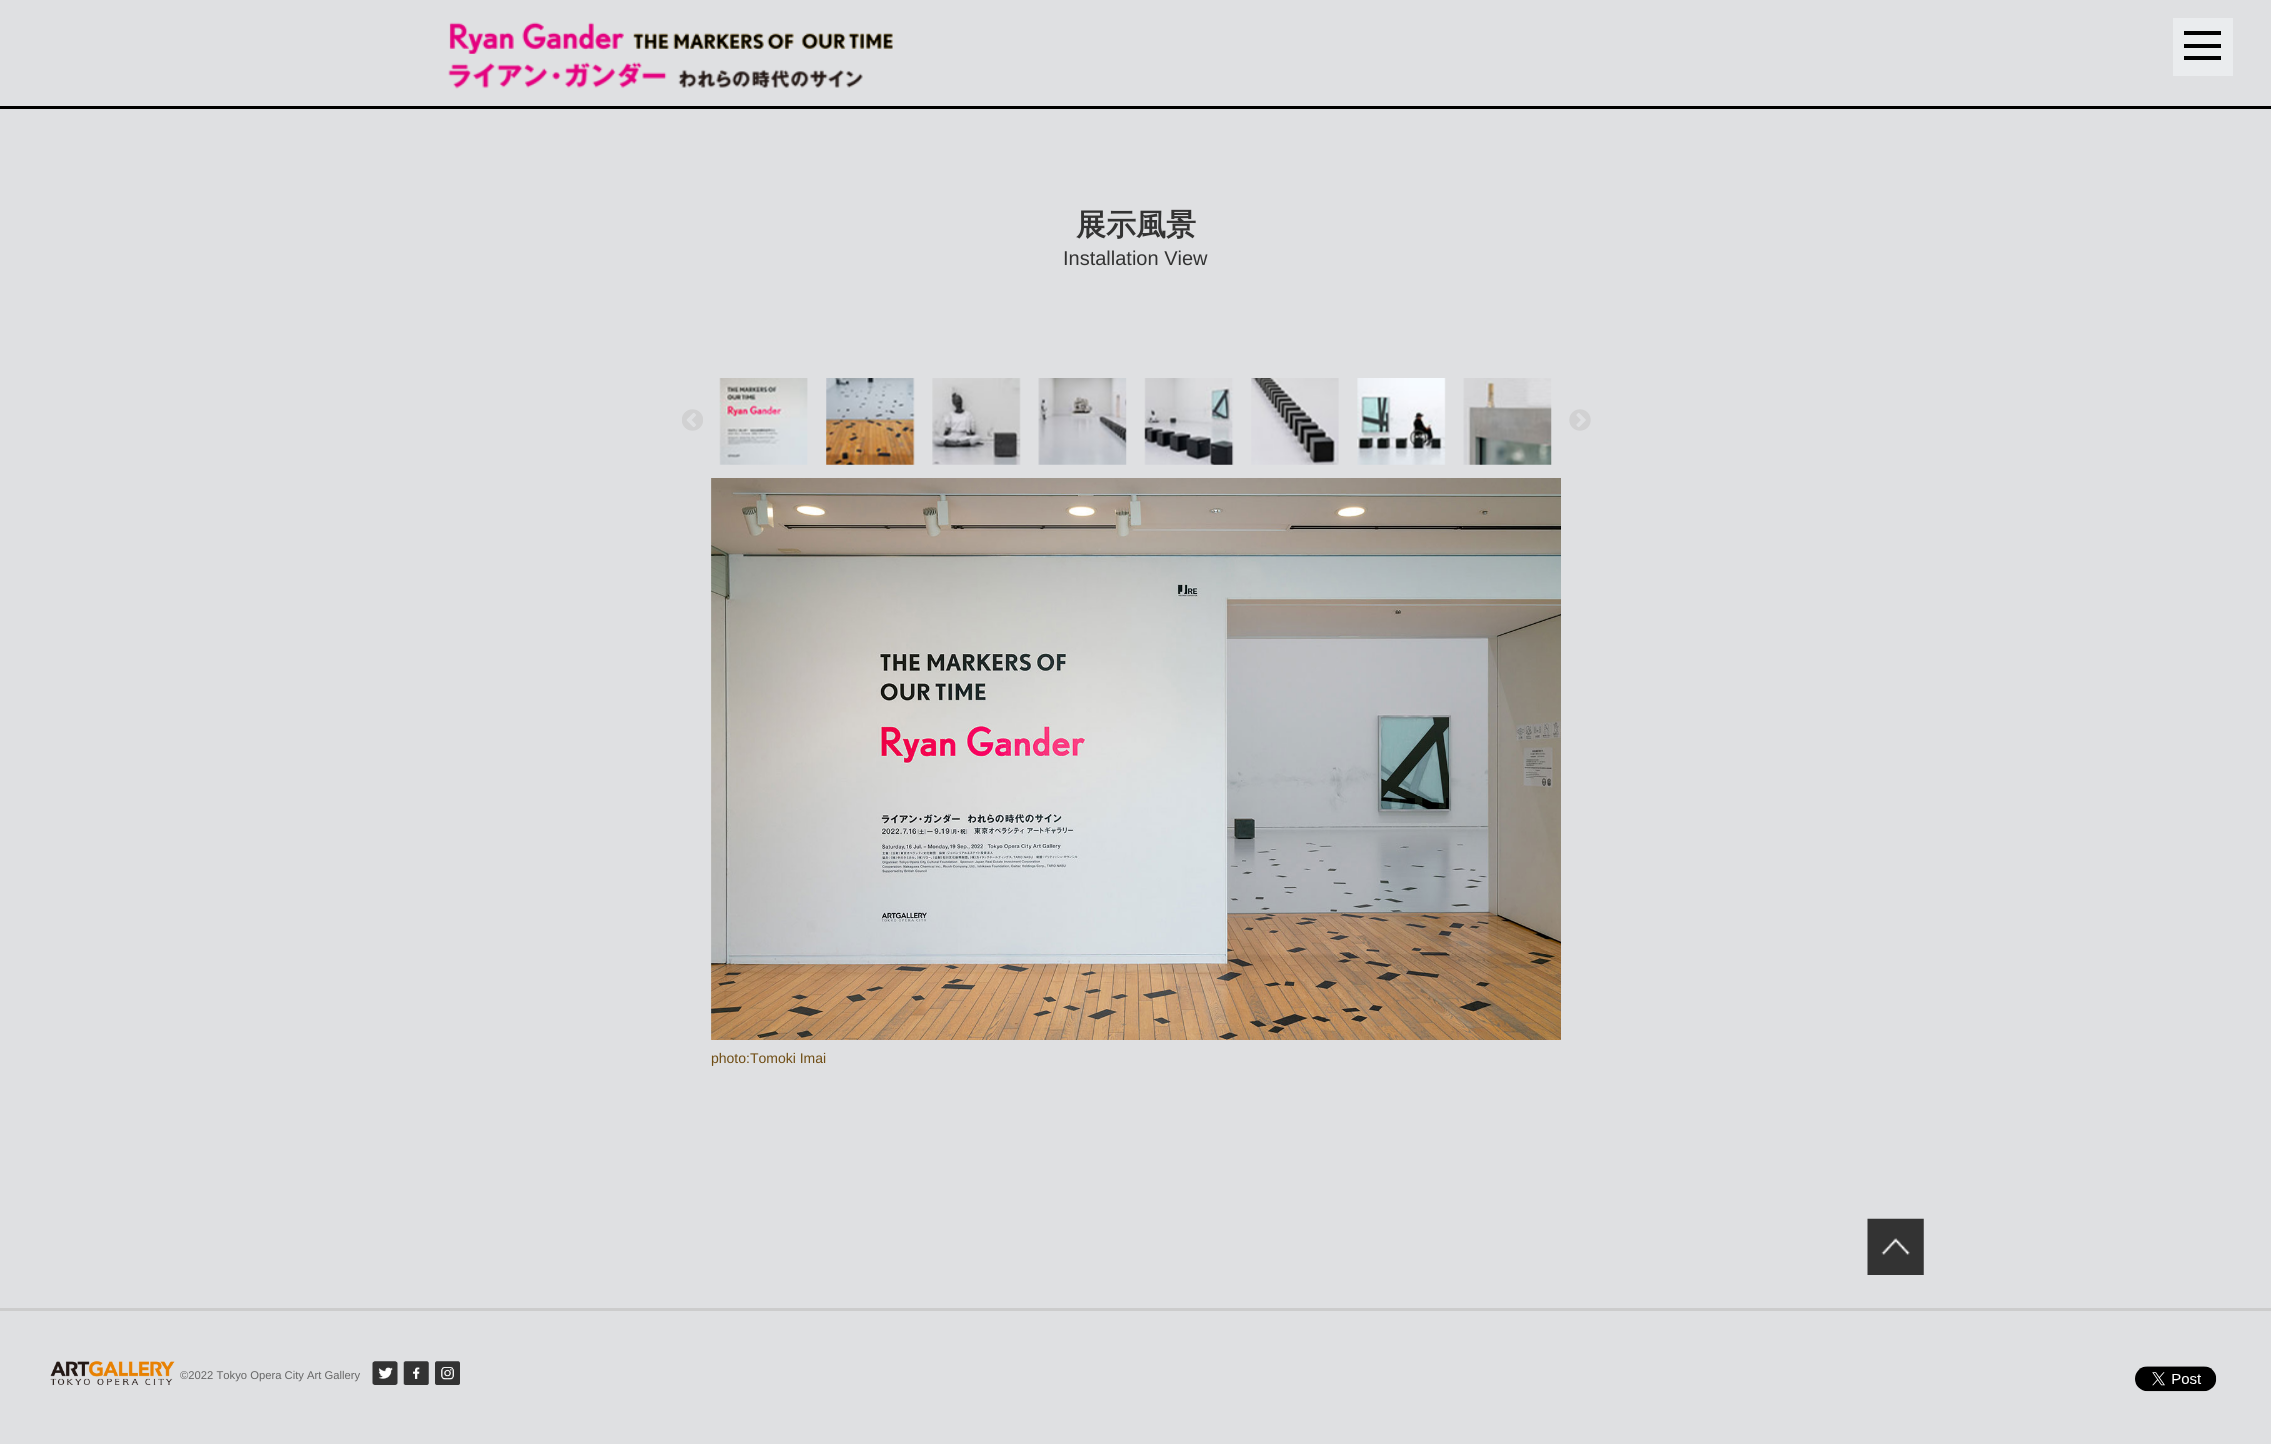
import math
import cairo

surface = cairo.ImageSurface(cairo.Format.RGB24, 2271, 1444)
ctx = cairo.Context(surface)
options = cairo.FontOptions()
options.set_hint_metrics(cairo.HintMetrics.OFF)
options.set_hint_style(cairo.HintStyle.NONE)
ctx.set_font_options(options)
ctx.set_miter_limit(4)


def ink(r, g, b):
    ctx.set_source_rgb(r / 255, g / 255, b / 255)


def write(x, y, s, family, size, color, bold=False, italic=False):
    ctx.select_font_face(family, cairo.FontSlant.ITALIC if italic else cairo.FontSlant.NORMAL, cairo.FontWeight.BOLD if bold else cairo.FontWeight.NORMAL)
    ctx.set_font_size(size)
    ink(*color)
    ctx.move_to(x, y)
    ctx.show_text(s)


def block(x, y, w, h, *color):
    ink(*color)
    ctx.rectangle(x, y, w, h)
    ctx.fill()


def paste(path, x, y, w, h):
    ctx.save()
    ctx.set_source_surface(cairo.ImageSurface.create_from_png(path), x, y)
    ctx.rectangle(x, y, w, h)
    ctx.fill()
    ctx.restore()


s1 = dict(family="WenQuanYi Zen Hei", size=30, color=(51, 51, 51), bold=True)
s2 = dict(family="Liberation Sans", size=20, color=(51, 51, 51))
s3 = dict(family="Liberation Sans", size=14, color=(111, 77, 20))
s4 = dict(family="Liberation Sans", size=11.25, color=(102, 102, 102))

ink(223, 224, 226)
ctx.paint()
block(0, 106, 2271, 3, 0, 0, 0)
paste("pic1.png", 448, 22, 445, 67)
block(2173, 18, 60, 58, 234, 236, 238)
block(2184, 31, 37, 4, 0, 0, 0)
block(2184, 44, 37, 4, 0, 0, 0)
block(2184, 56, 37, 4, 0, 0, 0)
write(1076, 235, "展示風景", **s1)
write(1063, 265, "Installation View", **s2)
paste("pic2.png", 682, 409, 21, 22)
paste("pic3.png", 719, 378, 89, 87)
paste("pic4.png", 826, 378, 89, 87)
paste("pic5.png", 932, 378, 89, 87)
paste("pic6.png", 1038, 378, 89, 87)
paste("pic7.png", 1144, 378, 90, 87)
paste("pic8.png", 1251, 378, 88, 87)
paste("pic9.png", 1357, 378, 89, 87)
paste("pic10.png", 1463, 378, 89, 87)
paste("pic11.png", 1569, 409, 22, 22)
paste("pic12.png", 711, 478, 850, 562)
write(711, 1063, "photo:Tomoki Imai", **s3)
paste("pic13.png", 1867, 1218, 57, 57)
block(0, 1308, 2271, 3, 204, 204, 204)
paste("pic14.png", 50, 1361, 125, 24)
write(180, 1379, "©2022 Tokyo Opera City Art Gallery", **s4)
paste("pic15.png", 372, 1361, 26, 24)
paste("pic16.png", 403, 1361, 26, 24)
paste("pic17.png", 435, 1361, 25, 24)
paste("pic18.png", 2135, 1366, 82, 26)
surface.write_to_png("screenshot.png")
